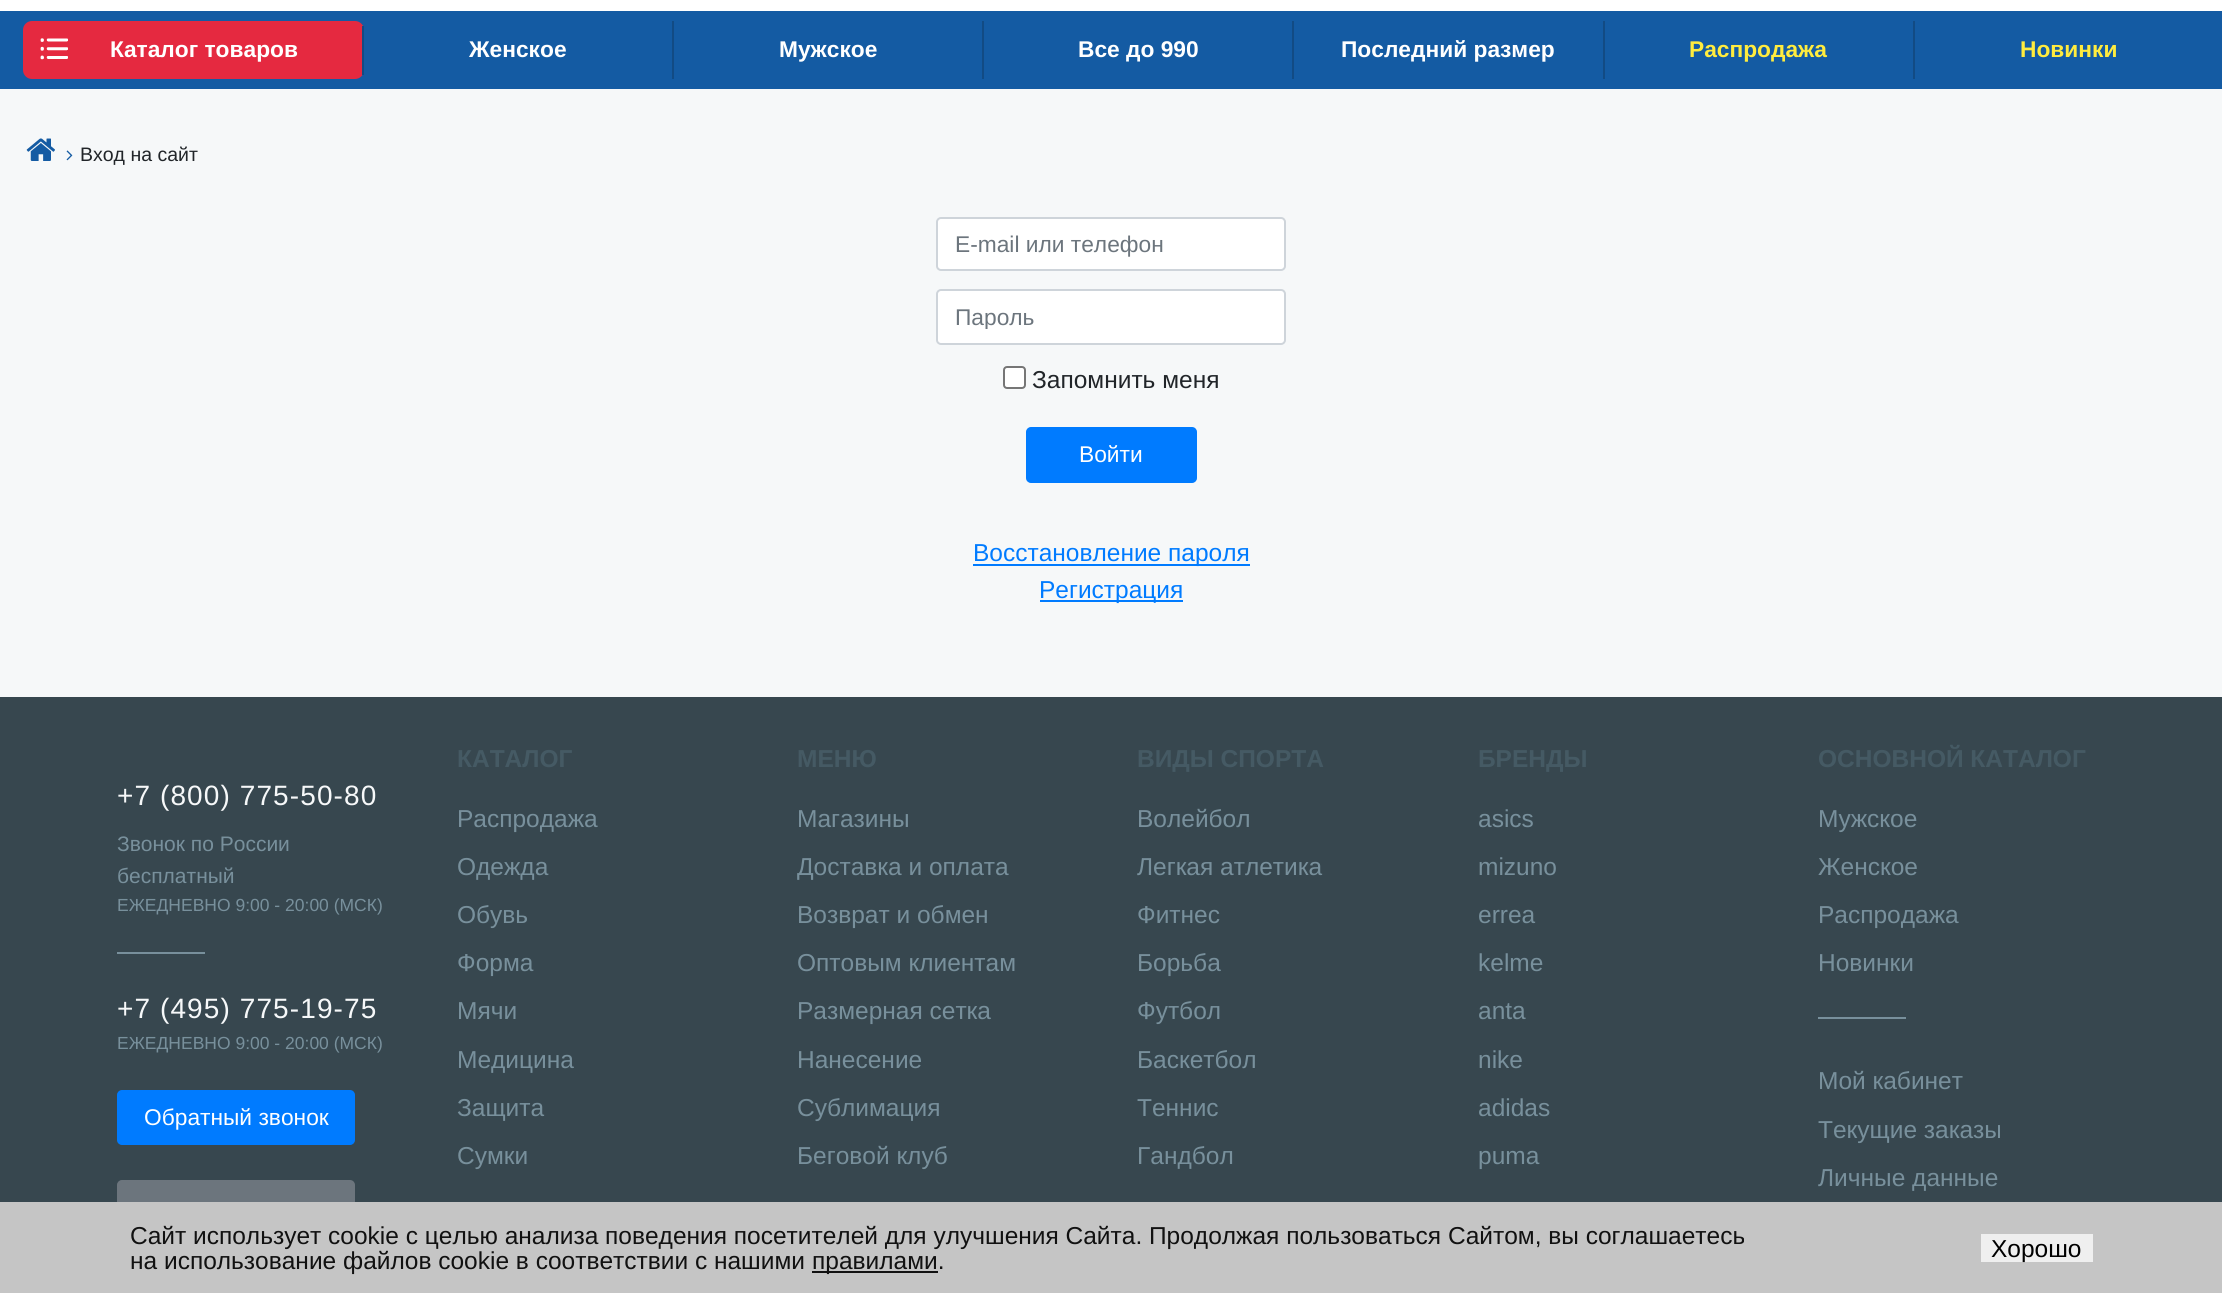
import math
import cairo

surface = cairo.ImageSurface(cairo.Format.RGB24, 2222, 1293)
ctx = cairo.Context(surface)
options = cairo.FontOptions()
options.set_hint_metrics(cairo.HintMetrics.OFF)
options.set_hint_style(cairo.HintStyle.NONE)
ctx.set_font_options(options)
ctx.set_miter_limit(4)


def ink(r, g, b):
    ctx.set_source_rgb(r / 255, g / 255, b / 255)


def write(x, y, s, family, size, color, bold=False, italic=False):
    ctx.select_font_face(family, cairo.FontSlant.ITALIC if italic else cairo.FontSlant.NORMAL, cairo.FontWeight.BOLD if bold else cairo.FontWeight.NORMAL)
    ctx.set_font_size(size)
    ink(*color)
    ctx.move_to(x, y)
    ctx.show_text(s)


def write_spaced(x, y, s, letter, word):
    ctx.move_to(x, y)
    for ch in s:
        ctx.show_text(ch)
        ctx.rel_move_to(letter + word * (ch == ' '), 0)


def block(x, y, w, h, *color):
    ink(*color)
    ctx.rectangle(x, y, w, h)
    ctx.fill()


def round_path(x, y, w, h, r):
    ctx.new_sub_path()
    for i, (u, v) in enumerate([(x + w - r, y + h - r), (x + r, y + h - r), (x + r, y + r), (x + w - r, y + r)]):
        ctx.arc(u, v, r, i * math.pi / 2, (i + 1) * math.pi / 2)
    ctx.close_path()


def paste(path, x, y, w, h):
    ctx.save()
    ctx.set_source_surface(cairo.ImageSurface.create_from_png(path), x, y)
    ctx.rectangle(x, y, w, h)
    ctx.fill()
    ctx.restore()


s1 = dict(family="Liberation Sans", size=22.75, color=(255, 255, 255), bold=True)
s2 = dict(family="Liberation Sans", size=22.75, color=(255, 236, 62), bold=True)
s3 = dict(family="Liberation Sans", size=19.5, color=(33, 37, 41))
s4 = dict(family="Liberation Sans", size=22.75, color=(108, 117, 125))
s5 = dict(family="Liberation Sans", size=24.5, color=(33, 37, 41))
s6 = dict(family="Liberation Sans", size=22.75, color=(255, 255, 255))
s7 = dict(family="Liberation Sans", size=24.5, color=(0, 123, 255))
s8 = dict(family="Liberation Sans", size=21, color=(120, 144, 156))
s9 = dict(family="Liberation Sans", size=17.5, color=(120, 144, 156))
s10 = dict(family="Liberation Sans", size=24.5, color=(69, 90, 100), bold=True)
s11 = dict(family="Liberation Sans", size=24.5, color=(120, 144, 156))
s12 = dict(family="Liberation Sans", size=24.5, color=(17, 17, 17))
s13 = dict(family="Liberation Sans", size=24.5, color=(0, 0, 0))

ink(255, 255, 255)
ctx.paint()
block(0, 11, 2222, 78, 20, 91, 163)
ink(229, 41, 64)
round_path(23, 21, 341, 58, 9)
ctx.fill()
block(362, 26, 2, 49, 18, 75, 132)
paste("pic1.png", 40, 38, 28, 22)
write(110, 57, "Каталог товаров", **s1)
block(672, 21, 2, 58, 18, 75, 132)
write(469, 57, "Женское", **s1)
block(982, 21, 2, 58, 18, 75, 132)
write(779, 57, "Мужское", **s1)
block(1292, 21, 2, 58, 18, 75, 132)
write(1078, 57, "Все до 990", **s1)
block(1603, 21, 2, 58, 18, 75, 132)
write(1341, 57, "Последний размер", **s1)
block(1913, 21, 2, 58, 18, 75, 132)
write(1689, 57, "Распродажа", **s2)
write(2020, 57, "Новинки", **s2)
block(0, 89, 2222, 608, 246, 248, 249)
paste("pic2.png", 26, 138, 29, 23)
paste("pic3.png", 66, 150, 7, 11)
write(80, 161, "Вход на сайт", **s3)
ink(255, 255, 255)
round_path(937, 218, 348, 52, 4)
ctx.fill_preserve()
ink(206, 212, 218)
ctx.stroke()
write(955, 252, "E-mail или телефон", **s4)
ink(255, 255, 255)
round_path(937, 290, 348, 54, 4)
ctx.fill_preserve()
ink(206, 212, 218)
ctx.stroke()
ctx.save()
ctx.rectangle(956, 303, 311, 26)
ctx.clip()
write(955, 325, "Пароль", **s4)
ctx.restore()
ink(255, 255, 255)
round_path(1004, 367, 21, 21, 3)
ctx.fill_preserve()
ink(118, 118, 118)
ctx.stroke()
write(1032, 388, "Запомнить меня", **s5)
ink(0, 123, 255)
round_path(1027, 428, 169, 54, 4)
ctx.fill_preserve()
ctx.stroke()
write(1079, 462, "Войти", **s6)
block(973, 564, 277, 2, 0, 123, 255)
write(973, 561, "Восстановление пароля", **s7)
block(1040, 600, 143, 2, 0, 123, 255)
write(1039, 598, "Регистрация", **s7)
block(0, 697, 2222, 505, 55, 71, 79)
ctx.set_font_size(28)
ink(246, 248, 249)
write_spaced(117, 805, "+7 (800) 775-50-80", 1.1, 0)
write(117, 851, "Звонок по России", **s8)
write(117, 883, "бесплатный", **s8)
write(117, 911, "ЕЖЕДНЕВНО 9:00 - 20:00 (МСК)", **s9)
block(117, 952, 88, 2, 120, 144, 156)
ctx.set_font_size(28)
ink(246, 248, 249)
write_spaced(117, 1018, "+7 (495) 775-19-75", 1.1, 0)
write(117, 1049, "ЕЖЕДНЕВНО 9:00 - 20:00 (МСК)", **s9)
ink(0, 123, 255)
round_path(118, 1091, 236, 53, 4)
ctx.fill_preserve()
ctx.stroke()
write(144, 1125, "Обратный звонок", **s6)
ink(108, 117, 125)
round_path(118, 1181, 236, 52, 4)
ctx.fill_preserve()
ctx.stroke()
write(457, 767, "КАТАЛОГ", **s10)
write(457, 827, "Распродажа", **s11)
write(457, 875, "Одежда", **s11)
write(457, 923, "Обувь", **s11)
write(457, 971, "Форма", **s11)
write(457, 1019, "Мячи", **s11)
write(457, 1068, "Медицина", **s11)
write(457, 1116, "Защита", **s11)
write(457, 1164, "Сумки", **s11)
write(797, 767, "МЕНЮ", **s10)
write(797, 827, "Магазины", **s11)
write(797, 875, "Доставка и оплата", **s11)
write(797, 923, "Возврат и обмен", **s11)
write(797, 971, "Оптовым клиентам", **s11)
write(797, 1019, "Размерная сетка", **s11)
write(797, 1068, "Нанесение", **s11)
write(797, 1116, "Сублимация", **s11)
write(797, 1164, "Беговой клуб", **s11)
write(1137, 767, "ВИДЫ СПОРТА", **s10)
write(1137, 827, "Волейбол", **s11)
write(1137, 875, "Легкая атлетика", **s11)
write(1137, 923, "Фитнес", **s11)
write(1137, 971, "Борьба", **s11)
write(1137, 1019, "Футбол", **s11)
write(1137, 1068, "Баскетбол", **s11)
write(1137, 1116, "Теннис", **s11)
write(1137, 1164, "Гандбол", **s11)
write(1478, 767, "БРЕНДЫ", **s10)
write(1478, 827, "asics", **s11)
write(1478, 875, "mizuno", **s11)
write(1478, 923, "errea", **s11)
write(1478, 971, "kelme", **s11)
write(1478, 1019, "anta", **s11)
write(1478, 1068, "nike", **s11)
write(1478, 1116, "adidas", **s11)
write(1478, 1164, "puma", **s11)
write(1818, 767, "ОСНОВНОЙ КАТАЛОГ", **s10)
write(1818, 827, "Мужское", **s11)
write(1818, 875, "Женское", **s11)
write(1818, 923, "Распродажа", **s11)
write(1818, 971, "Новинки", **s11)
block(1818, 1017, 88, 2, 120, 144, 156)
write(1818, 1089, "Мой кабинет", **s11)
write(1818, 1138, "Текущие заказы", **s11)
write(1818, 1186, "Личные данные", **s11)
block(0, 1202, 2222, 91, 197, 197, 197)
write(130, 1244, "Сайт использует cookie с целью анализа поведения посетителей для улучшения Сайта. Продолжая пользоваться Сайтом, вы соглашаетесь", **s12)
write(130, 1269, "на использование файлов cookie в соответствии с нашими", **s12)
block(812, 1271, 126, 2, 17, 17, 17)
write(812, 1269, "правилами.", **s12)
block(1981, 1234, 112, 28, 239, 239, 239)
write(1991, 1257, "Хорошо", **s13)
surface.write_to_png("screenshot.png")
